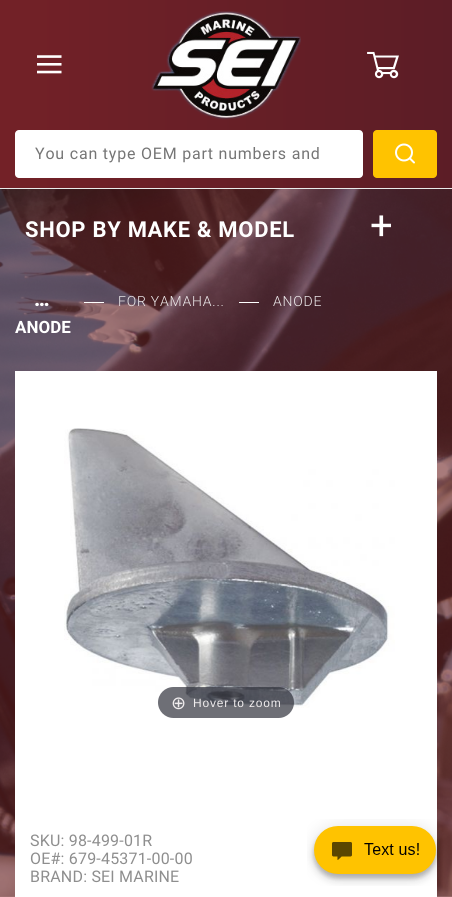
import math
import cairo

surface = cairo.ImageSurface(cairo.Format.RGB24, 452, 897)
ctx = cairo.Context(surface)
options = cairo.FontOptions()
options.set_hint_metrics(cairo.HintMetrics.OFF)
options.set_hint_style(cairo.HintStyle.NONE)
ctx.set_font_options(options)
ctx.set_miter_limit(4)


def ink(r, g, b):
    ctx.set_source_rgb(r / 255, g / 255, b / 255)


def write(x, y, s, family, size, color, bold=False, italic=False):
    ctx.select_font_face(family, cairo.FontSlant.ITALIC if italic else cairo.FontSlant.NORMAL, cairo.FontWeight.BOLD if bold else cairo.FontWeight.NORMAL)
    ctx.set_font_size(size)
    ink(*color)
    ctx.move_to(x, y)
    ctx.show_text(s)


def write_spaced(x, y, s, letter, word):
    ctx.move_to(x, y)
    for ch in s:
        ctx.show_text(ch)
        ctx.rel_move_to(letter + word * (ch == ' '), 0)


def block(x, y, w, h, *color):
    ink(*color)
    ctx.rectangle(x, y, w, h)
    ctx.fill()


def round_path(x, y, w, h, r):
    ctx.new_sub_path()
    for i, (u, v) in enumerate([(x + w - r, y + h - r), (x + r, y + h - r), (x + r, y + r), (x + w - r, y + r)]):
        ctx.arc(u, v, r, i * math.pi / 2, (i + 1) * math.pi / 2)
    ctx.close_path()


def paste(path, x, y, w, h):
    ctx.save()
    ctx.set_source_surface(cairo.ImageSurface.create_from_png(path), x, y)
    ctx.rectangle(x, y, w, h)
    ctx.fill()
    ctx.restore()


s1 = dict(family="Roboto", size=17, color=(255, 255, 255), bold=True)

ink(241, 241, 241)
ctx.paint()
gradient = cairo.LinearGradient(452, 94, 0, 94)
gradient.add_color_stop_rgba(0, 0.361, 0.114, 0.149, 1)
gradient.add_color_stop_rgba(1, 0.451, 0.129, 0.153, 1)
ctx.set_source(gradient)
ctx.rectangle(0, 0, 452, 188)
ctx.fill()
block(0, 188, 452, 1, 234, 234, 234)
paste("pic1.png", 37, 55, 25, 19)
paste("pic2.png", 151, 11, 150, 109)
paste("pic3.png", 367, 51, 32, 28)
ink(255, 255, 255)
round_path(15, 130, 348, 48, 4)
ctx.fill()
ctx.select_font_face("Roboto")
ctx.set_font_size(16)
ink(117, 117, 117)
write_spaced(35, 159, "You can type OEM part numbers and", 0.8, 0)
ink(255, 195, 0)
round_path(373, 130, 64, 48, 4)
ctx.fill()
paste("pic4.png", 395, 143, 20, 21)
paste("pic5.png", 0, 189, 452, 708)
gradient = cairo.LinearGradient(391, 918, 61, -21)
gradient.add_color_stop_rgba(0.75, 0.439, 0.141, 0.145, 0.6)
gradient.add_color_stop_rgba(0.91, 0.075, 0.075, 0.075, 0.7)
ctx.set_source(gradient)
ctx.rectangle(0, 189, 452, 708)
ctx.fill()
ctx.select_font_face("Roboto", cairo.FontSlant.NORMAL, cairo.FontWeight.BOLD)
ctx.set_font_size(22)
ink(255, 255, 255)
write_spaced(25, 237, "SHOP BY MAKE & MODEL", 0.7, 0)
ctx.select_font_face("Roboto")
ctx.set_font_size(40)
write_spaced(370, 239, "+", 0.8, 0)
ctx.select_font_face("Roboto Black")
ctx.set_font_size(20)
write_spaced(34, 306, "…", 1, 0)
block(84, 302, 20, 1, 255, 255, 255)
ctx.select_font_face("Roboto Light")
ctx.set_font_size(14)
ink(239, 236, 237)
write_spaced(118, 306, "FOR YAMAHA...", 0.8, 0)
block(239, 302, 20, 1, 255, 255, 255)
ink(239, 236, 237)
write_spaced(273, 306, "ANODE", 0.8, 0)
write(15, 333, "ANODE", **s1)
block(15, 371, 422, 526, 255, 255, 255)
paste("pic6.png", 64, 428, 331, 280)
ctx.set_source_rgba(0.192, 0.2, 0.239, 0.7)
round_path(158, 687, 136, 31, 15.5)
ctx.fill()
ctx.select_font_face("DejaVu Sans")
ctx.set_font_size(18)
ink(239, 236, 237)
write_spaced(171, 709, "⊕", 0.8, 0)
ctx.select_font_face("Liberation Sans")
ctx.set_font_size(12)
write_spaced(193, 707, "Hover to zoom", 0.8, 0)
ctx.select_font_face("Roboto")
ctx.set_font_size(16)
ink(142, 142, 142)
write_spaced(30, 846, "SKU: 98-499-01R", 0.2, 0)
write_spaced(30, 864, "OE#: 679-45371-00-00", 0.2, 0)
write_spaced(30, 882, "BRAND: SEI MARINE", 0.2, 0)
paste("pic7.png", 307, 819, 133, 67)
surface.write_to_png("screenshot.png")
